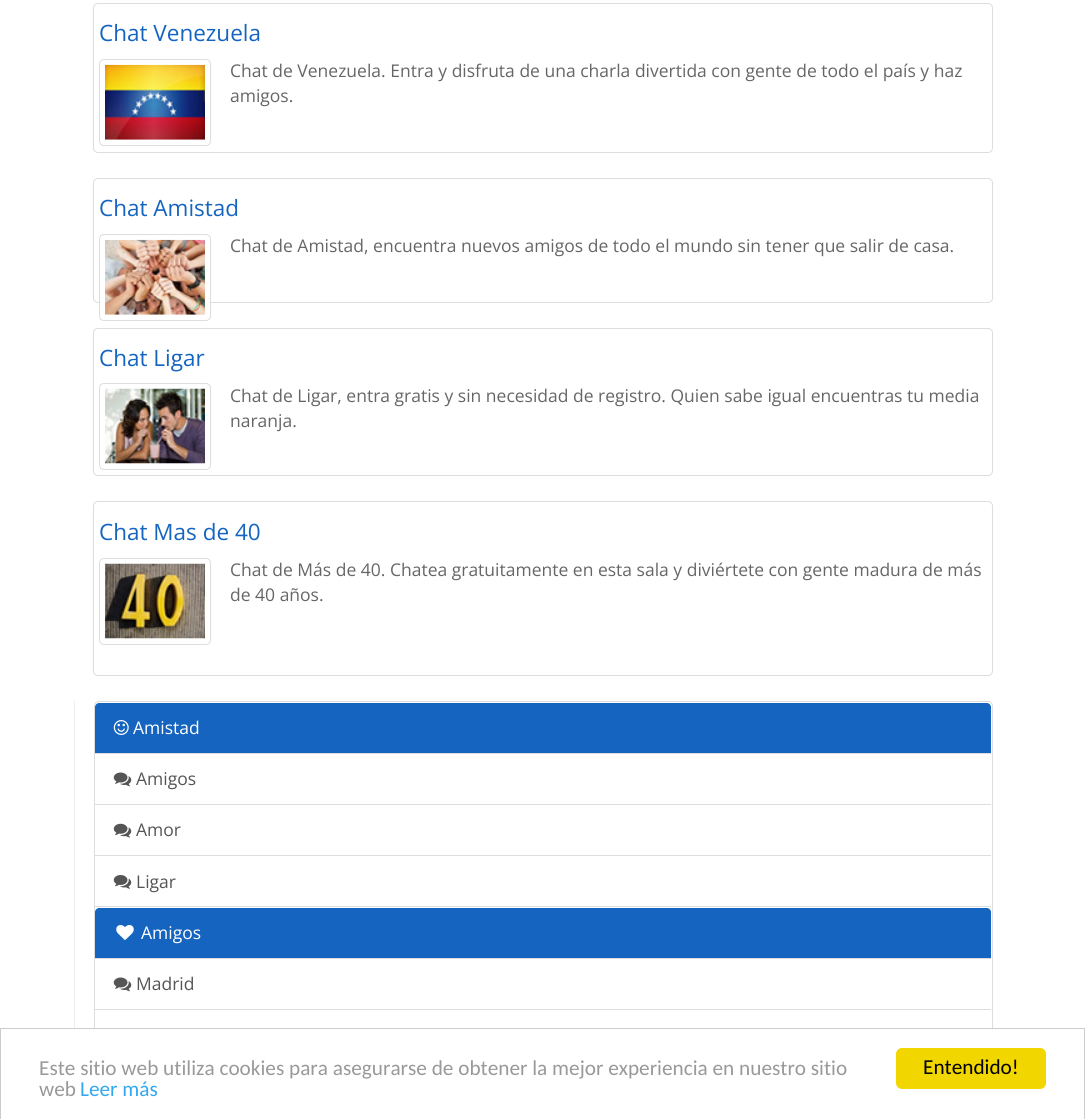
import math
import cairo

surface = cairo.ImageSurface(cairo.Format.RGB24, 1085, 1119)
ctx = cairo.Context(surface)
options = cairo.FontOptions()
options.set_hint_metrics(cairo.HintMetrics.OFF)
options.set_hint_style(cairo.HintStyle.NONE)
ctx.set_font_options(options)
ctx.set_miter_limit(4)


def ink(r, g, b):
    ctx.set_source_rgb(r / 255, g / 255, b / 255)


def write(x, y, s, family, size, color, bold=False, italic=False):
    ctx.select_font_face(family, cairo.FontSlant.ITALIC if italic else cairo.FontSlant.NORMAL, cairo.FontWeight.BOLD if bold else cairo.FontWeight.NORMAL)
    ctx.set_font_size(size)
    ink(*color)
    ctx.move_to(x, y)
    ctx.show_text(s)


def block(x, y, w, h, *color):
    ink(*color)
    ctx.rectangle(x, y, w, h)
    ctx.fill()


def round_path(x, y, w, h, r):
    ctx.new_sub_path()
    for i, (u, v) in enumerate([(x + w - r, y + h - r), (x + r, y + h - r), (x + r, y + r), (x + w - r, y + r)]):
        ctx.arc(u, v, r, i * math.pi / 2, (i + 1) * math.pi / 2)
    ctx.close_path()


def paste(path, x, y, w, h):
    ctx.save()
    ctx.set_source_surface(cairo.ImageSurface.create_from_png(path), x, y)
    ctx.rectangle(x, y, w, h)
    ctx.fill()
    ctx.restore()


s1 = dict(family="Open Sans", size=22.5, color=(21, 101, 192))
s2 = dict(family="Open Sans", size=17.5, color=(102, 102, 102))
s3 = dict(family="Open Sans", size=17.5, color=(255, 255, 255))
s4 = dict(family="Open Sans", size=17.5, color=(85, 85, 85))
s5 = dict(family="Carlito", size=21.25, color=(153, 153, 153))
s6 = dict(family="Carlito", size=21.25, color=(49, 168, 240))
s7 = dict(family="Carlito", size=21.25, color=(0, 0, 0))

ink(255, 255, 255)
ctx.paint()
round_path(93.5, 3.5, 899, 149, 4.5)
ink(221, 221, 221)
ctx.set_line_width(1)
ctx.stroke()
write(99, 41, "Chat Venezuela", **s1)
round_path(99.5, 59.5, 111, 86, 4.5)
ink(221, 221, 221)
ctx.stroke()
paste("pic1.png", 105, 64, 100, 76)
write(230, 77, "Chat de Venezuela. Entra y disfruta de una charla divertida con gente de todo el país y haz", **s2)
write(230, 102, "amigos.", **s2)
round_path(93.5, 178.5, 899, 124, 4.5)
ink(221, 221, 221)
ctx.stroke()
write(99, 216, "Chat Amistad", **s1)
ink(255, 255, 255)
round_path(99.5, 234.5, 111, 86, 4.5)
ctx.fill_preserve()
ink(221, 221, 221)
ctx.stroke()
paste("pic2.png", 105, 239, 100, 76)
write(230, 252, "Chat de Amistad, encuentra nuevos amigos de todo el mundo sin tener que salir de casa.", **s2)
round_path(93.5, 328.5, 899, 147, 4.5)
ink(221, 221, 221)
ctx.stroke()
write(99, 366, "Chat Ligar", **s1)
round_path(99.5, 383.5, 111, 86, 4.5)
ink(221, 221, 221)
ctx.stroke()
paste("pic3.png", 105, 388, 100, 76)
write(230, 402, "Chat de Ligar, entra gratis y sin necesidad de registro. Quien sabe igual encuentras tu media", **s2)
write(230, 427, "naranja.", **s2)
round_path(93.5, 501.5, 899, 174, 4.5)
ink(221, 221, 221)
ctx.stroke()
write(99, 540, "Chat Mas de 40", **s1)
round_path(99.5, 558.5, 111, 86, 4.5)
ink(221, 221, 221)
ctx.stroke()
paste("pic4.png", 105, 563, 100, 76)
write(230, 576, "Chat de Más de 40. Chatea gratuitamente en esta sala y diviértete con gente madura de más", **s2)
write(230, 601, "de 40 años.", **s2)
block(74, 701, 1, 327, 238, 238, 238)
round_path(94.5, 701.5, 898, 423, 4.5)
ink(221, 221, 221)
ctx.stroke()
ink(21, 101, 192)
ctx.new_path()
ctx.move_to(99, 703)
ctx.line_to(987, 703)
ctx.curve_to(989, 703, 991, 705, 991, 707)
ctx.line_to(991, 754)
ctx.line_to(95, 754)
ctx.line_to(95, 707)
ctx.curve_to(95, 705, 97, 703, 99, 703)
ctx.close_path()
ctx.fill()
block(95, 753, 896, 1, 221, 221, 221)
paste("pic5.png", 113, 720, 16, 15)
write(133, 734, "Amistad", **s3)
block(95, 804, 896, 1, 221, 221, 221)
paste("pic6.png", 113, 772, 19, 15)
write(136, 785, "Amigos", **s4)
block(95, 855, 896, 1, 221, 221, 221)
paste("pic7.png", 113, 823, 19, 15)
write(136, 836, "Amor", **s4)
block(95, 906, 896, 1, 221, 221, 221)
paste("pic8.png", 113, 875, 19, 14)
write(136, 888, "Ligar", **s4)
ink(21, 101, 192)
ctx.new_path()
ctx.move_to(99, 908)
ctx.line_to(987, 908)
ctx.curve_to(989, 908, 991, 910, 991, 912)
ctx.line_to(991, 959)
ctx.line_to(95, 959)
ctx.line_to(95, 912)
ctx.curve_to(95, 910, 97, 908, 99, 908)
ctx.close_path()
ctx.fill()
block(95, 958, 896, 1, 221, 221, 221)
paste("pic9.png", 116, 925, 18, 15)
write(141, 939, "Amigos", **s3)
block(95, 1009, 896, 1, 221, 221, 221)
paste("pic6.png", 113, 977, 19, 15)
write(136, 990, "Madrid", **s4)
block(94, 1029, 899, 90, 255, 255, 255)
ctx.rectangle(0.5, 1028.5, 1084, 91)
ink(204, 204, 204)
ctx.stroke()
write(39, 1075, "Este sitio web utiliza cookies para asegurarse de obtener la mejor experiencia en nuestro sitio", **s5)
write(39, 1096, "web", **s5)
write(80, 1096, "Leer más", **s6)
ink(241, 214, 0)
round_path(896, 1048, 150, 41, 6)
ctx.fill()
write(923, 1074, "Entendido!", **s7)
surface.write_to_png("screenshot.png")
